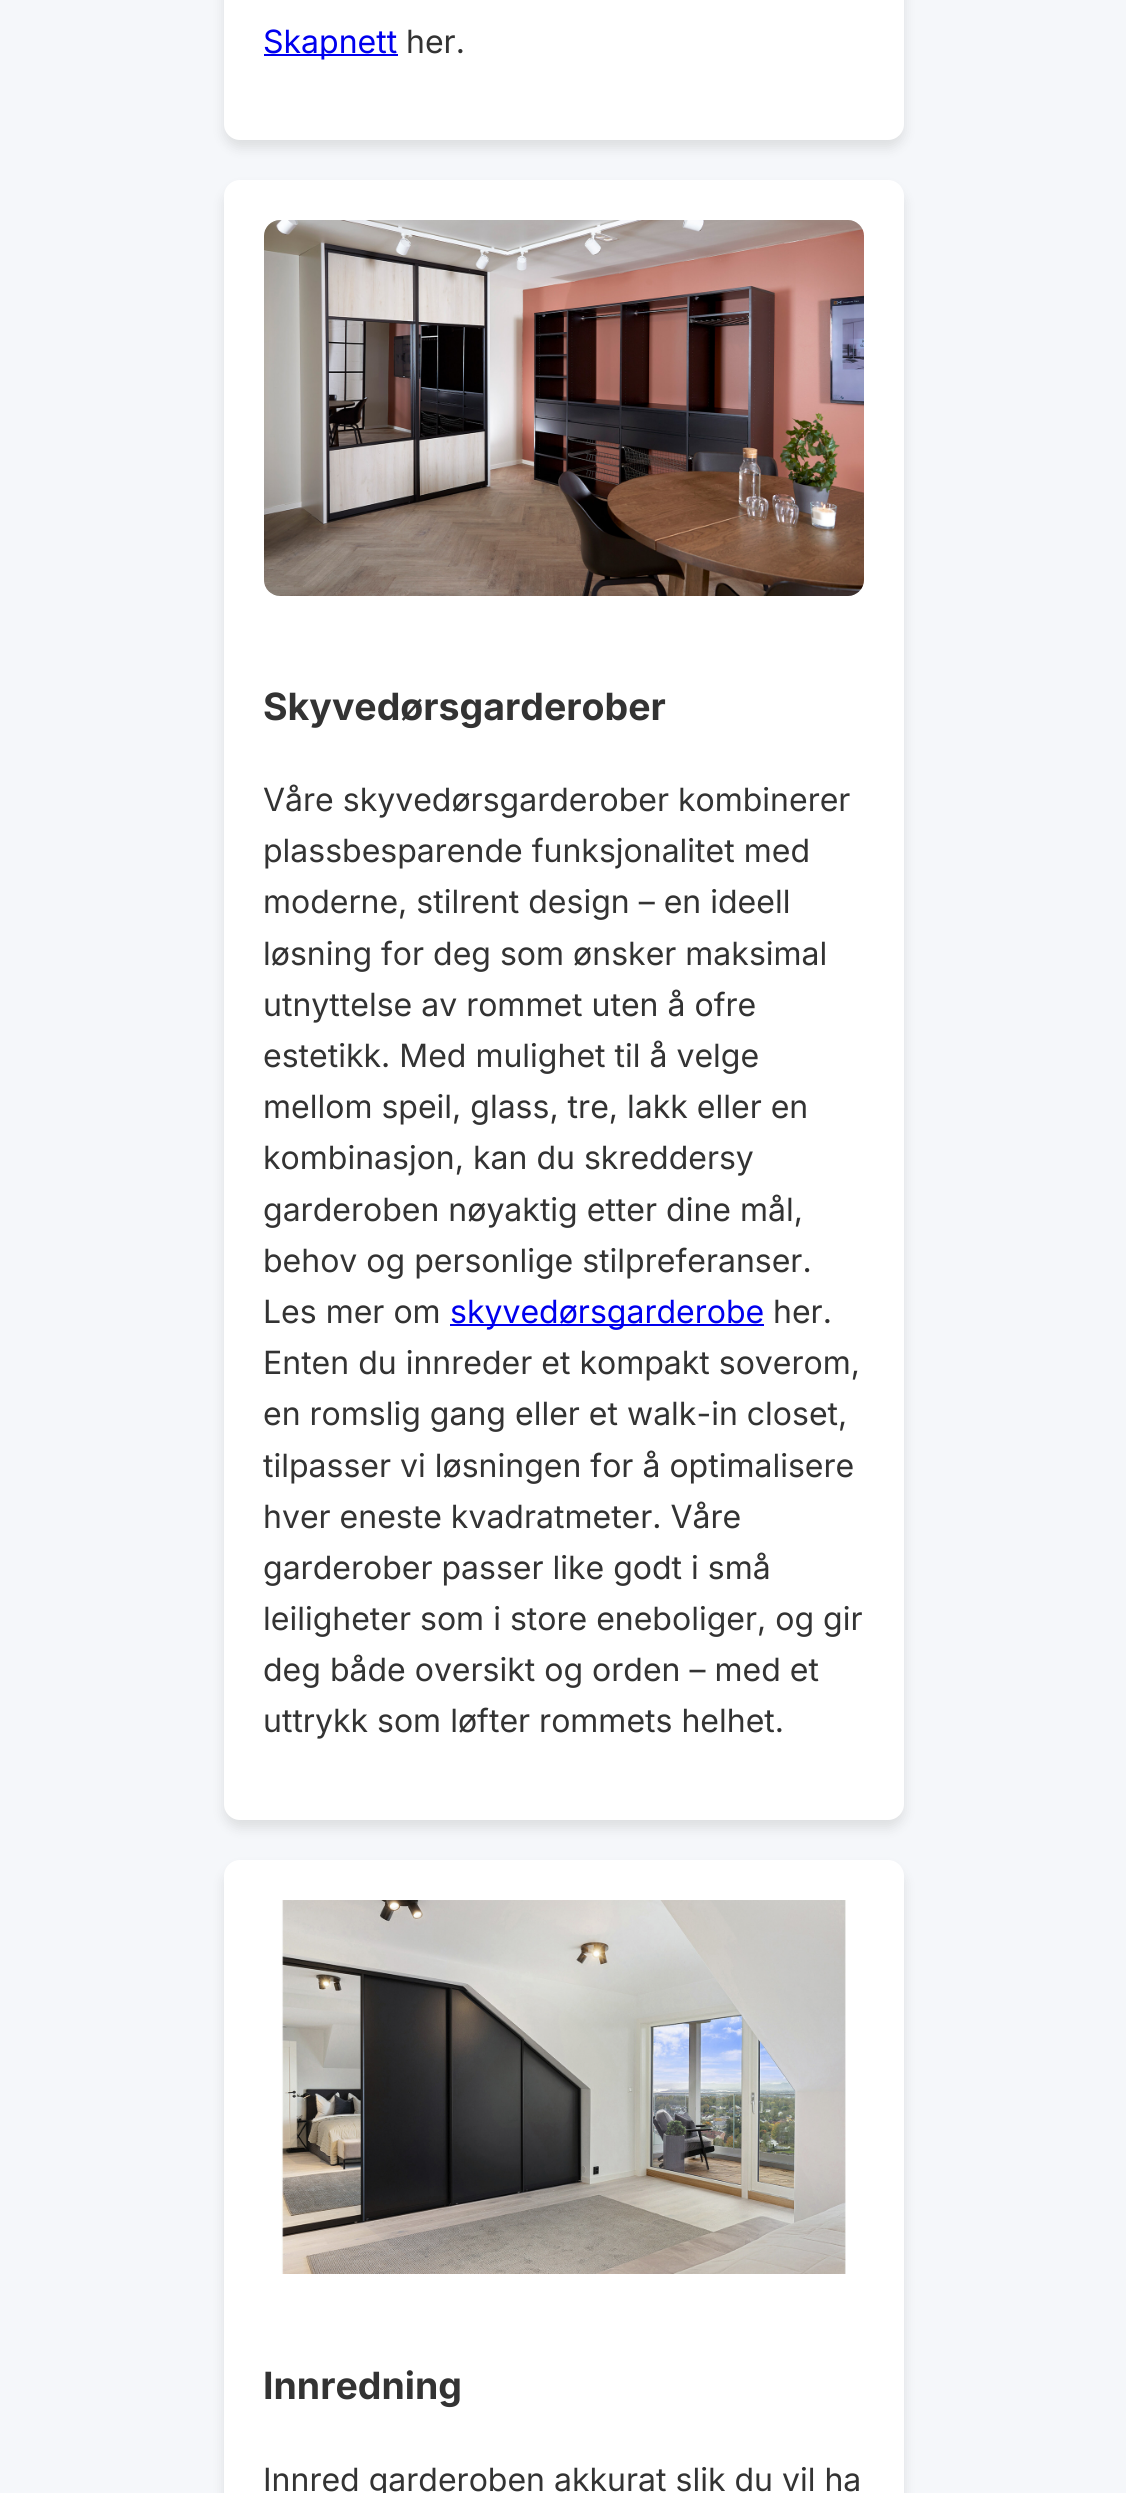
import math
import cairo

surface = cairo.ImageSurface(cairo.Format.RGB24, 1126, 2493)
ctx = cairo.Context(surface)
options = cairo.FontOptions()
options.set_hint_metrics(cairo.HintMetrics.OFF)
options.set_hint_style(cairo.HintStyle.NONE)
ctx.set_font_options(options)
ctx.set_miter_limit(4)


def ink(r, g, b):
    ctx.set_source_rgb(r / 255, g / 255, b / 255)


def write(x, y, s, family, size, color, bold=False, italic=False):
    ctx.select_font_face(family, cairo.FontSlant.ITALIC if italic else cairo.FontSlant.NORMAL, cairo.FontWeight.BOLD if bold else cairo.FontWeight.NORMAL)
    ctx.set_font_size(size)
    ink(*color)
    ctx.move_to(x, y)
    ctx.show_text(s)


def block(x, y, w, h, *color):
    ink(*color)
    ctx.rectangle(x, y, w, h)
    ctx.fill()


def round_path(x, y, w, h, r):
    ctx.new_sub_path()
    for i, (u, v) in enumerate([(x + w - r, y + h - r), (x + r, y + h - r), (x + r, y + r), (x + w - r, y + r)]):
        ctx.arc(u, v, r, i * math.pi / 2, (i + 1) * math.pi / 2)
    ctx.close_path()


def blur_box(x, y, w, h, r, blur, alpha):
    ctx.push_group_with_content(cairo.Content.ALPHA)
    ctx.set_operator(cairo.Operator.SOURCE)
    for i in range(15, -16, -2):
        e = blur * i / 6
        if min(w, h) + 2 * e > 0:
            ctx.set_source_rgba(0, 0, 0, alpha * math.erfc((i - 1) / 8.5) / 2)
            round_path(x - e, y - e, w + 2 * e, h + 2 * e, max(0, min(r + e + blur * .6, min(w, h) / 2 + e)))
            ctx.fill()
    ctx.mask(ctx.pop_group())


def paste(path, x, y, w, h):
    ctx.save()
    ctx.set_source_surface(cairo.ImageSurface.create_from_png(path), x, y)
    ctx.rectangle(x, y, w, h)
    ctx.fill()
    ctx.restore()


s1 = dict(family="Inter", size=32, color=(0, 0, 238))
s2 = dict(family="Inter", size=32, color=(51, 51, 51))
s3 = dict(family="Inter", size=37.5, color=(51, 51, 51), bold=True)

ink(245, 247, 250)
ctx.paint()
ink(0, 0, 0)
blur_box(224, -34, 680, 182, 16, 6, 0.1)
ink(255, 255, 255)
round_path(224, -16, 680, 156, 16)
ctx.fill()
block(264, 54, 134, 2, 0, 0, 238)
write(263, 53, "Skapnett", **s1)
write(406, 53, "her.", **s2)
ink(0, 0, 0)
blur_box(224, 188, 680, 1640, 16, 6, 0.1)
ink(255, 255, 255)
round_path(224, 180, 680, 1640, 16)
ctx.fill()
paste("pic1.png", 264, 220, 600, 376)
write(263, 720, "Skyvedørsgarderober", **s3)
write(263, 811, "Våre skyvedørsgarderober kombinerer", **s2)
write(263, 862, "plassbesparende funksjonalitet med", **s2)
write(263, 913, "moderne, stilrent design – en ideell", **s2)
write(263, 965, "løsning for deg som ønsker maksimal", **s2)
write(263, 1016, "utnyttelse av rommet uten å ofre", **s2)
write(263, 1067, "estetikk. Med mulighet til å velge", **s2)
write(263, 1118, "mellom speil, glass, tre, lakk eller en", **s2)
write(263, 1169, "kombinasjon, kan du skreddersy", **s2)
write(263, 1221, "garderoben nøyaktig etter dine mål,", **s2)
write(263, 1272, "behov og personlige stilpreferanser.", **s2)
write(263, 1323, "Les mer om", **s2)
block(450, 1324, 314, 2, 0, 0, 238)
write(450, 1323, "skyvedørsgarderobe", **s1)
write(773, 1323, "her.", **s2)
write(263, 1374, "Enten du innreder et kompakt soverom,", **s2)
write(263, 1425, "en romslig gang eller et walk-in closet,", **s2)
write(263, 1477, "tilpasser vi løsningen for å optimalisere", **s2)
write(263, 1528, "hver eneste kvadratmeter. Våre", **s2)
write(263, 1579, "garderober passer like godt i små", **s2)
write(263, 1630, "leiligheter som i store eneboliger, og gir", **s2)
write(263, 1681, "deg både oversikt og orden – med et", **s2)
write(263, 1732, "uttrykk som løfter rommets helhet.", **s2)
ink(0, 0, 0)
blur_box(224, 1868, 680, 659, 16, 6, 0.1)
ink(255, 255, 255)
round_path(224, 1860, 680, 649, 16)
ctx.fill()
paste("pic2.png", 281, 1900, 565, 374)
write(263, 2399, "Innredning", **s3)
write(263, 2491, "Innred garderoben akkurat slik du vil ha", **s2)
surface.write_to_png("screenshot.png")
